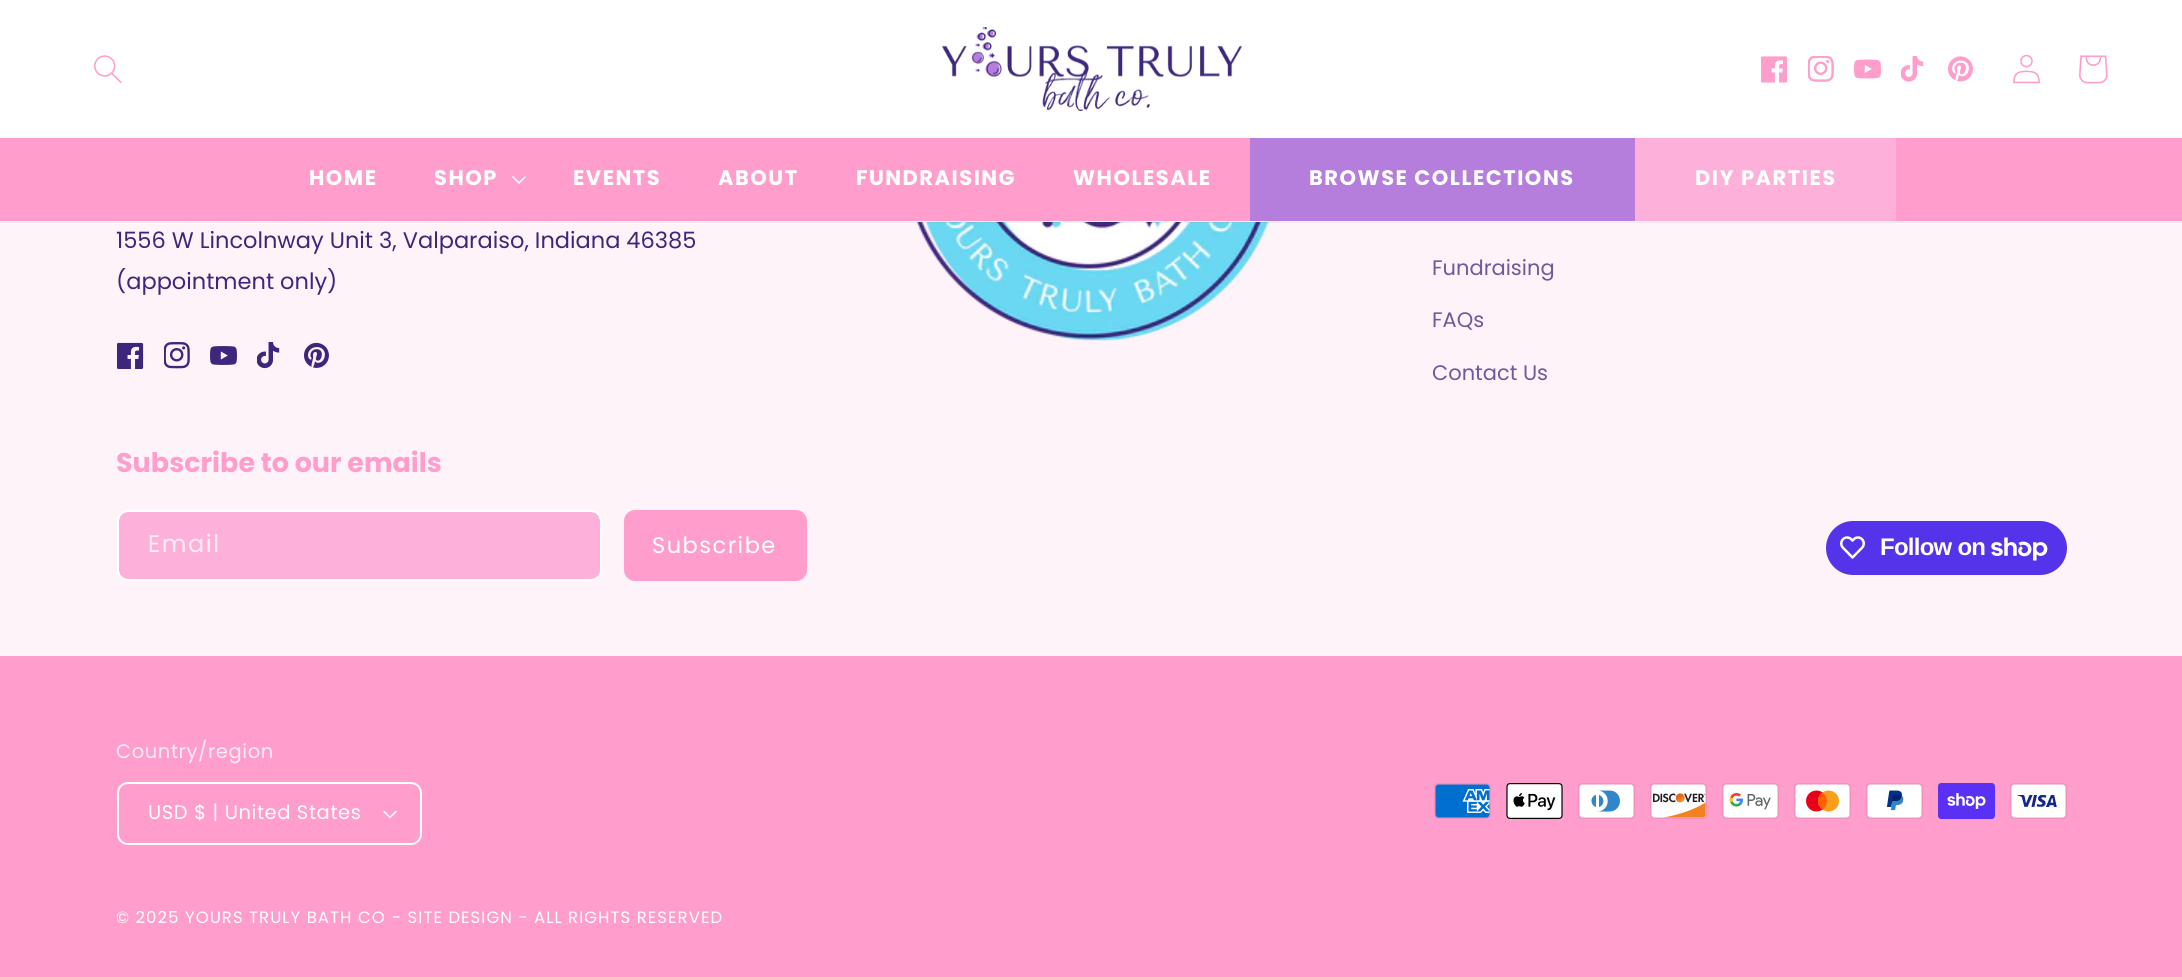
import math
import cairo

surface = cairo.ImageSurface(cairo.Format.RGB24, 2182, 977)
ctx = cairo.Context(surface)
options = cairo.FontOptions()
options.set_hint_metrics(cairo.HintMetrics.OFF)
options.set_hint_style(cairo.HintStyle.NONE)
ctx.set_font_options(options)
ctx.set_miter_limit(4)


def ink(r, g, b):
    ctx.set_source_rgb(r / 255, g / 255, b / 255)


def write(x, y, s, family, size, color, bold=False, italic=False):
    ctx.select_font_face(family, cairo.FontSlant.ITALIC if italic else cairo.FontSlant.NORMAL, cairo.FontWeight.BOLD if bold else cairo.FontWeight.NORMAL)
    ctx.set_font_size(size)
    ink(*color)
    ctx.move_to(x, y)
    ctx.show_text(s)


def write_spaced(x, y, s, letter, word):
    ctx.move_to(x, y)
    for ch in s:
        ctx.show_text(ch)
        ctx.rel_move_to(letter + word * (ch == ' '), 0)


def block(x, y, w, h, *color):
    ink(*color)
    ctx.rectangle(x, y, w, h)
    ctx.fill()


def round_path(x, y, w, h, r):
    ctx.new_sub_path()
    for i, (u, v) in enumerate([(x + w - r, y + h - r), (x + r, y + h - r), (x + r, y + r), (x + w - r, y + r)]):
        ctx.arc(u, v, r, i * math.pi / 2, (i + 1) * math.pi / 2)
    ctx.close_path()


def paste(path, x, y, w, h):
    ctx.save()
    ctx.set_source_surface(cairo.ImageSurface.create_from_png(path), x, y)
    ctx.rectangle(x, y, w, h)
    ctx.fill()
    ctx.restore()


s1 = dict(family="Poppins", size=22.5, color=(62, 38, 124))
s2 = dict(family="Poppins", size=21, color=(110, 89, 156))
s3 = dict(family="Poppins", size=27, color=(255, 158, 204), bold=True)

ink(255, 243, 250)
ctx.paint()
block(0, 0, 2182, 222, 255, 255, 255)
paste("pic16.png", 916, 222, 354, 119)
ctx.set_source_rgba(0.345, 0.349, 0.357, 0.08)
ctx.rectangle(0, 221, 2182, 2)
ctx.fill()
paste("pic1.png", 94, 55, 28, 28)
paste("pic2.png", 942, 27, 300, 84)
paste("pic3.png", 1761, 56, 27, 27)
paste("pic4.png", 1808, 56, 26, 26)
paste("pic5.png", 1854, 59, 27, 20)
paste("pic6.png", 1901, 56, 23, 26)
paste("pic7.png", 1948, 56, 25, 26)
paste("pic8.png", 2013, 54, 27, 30)
paste("pic9.png", 2079, 55, 29, 29)
block(0, 138, 2182, 83, 255, 158, 204)
ctx.select_font_face("Poppins", cairo.FontSlant.NORMAL, cairo.FontWeight.BOLD)
ctx.set_font_size(21)
ink(255, 255, 255)
write_spaced(309, 185, "HOME", 1.5, 0)
write_spaced(434, 185, "SHOP", 1.5, 0)
paste("pic10.png", 512, 176, 14, 8)
write_spaced(573, 185, "EVENTS", 1.5, 0)
write_spaced(718, 185, "ABOUT", 1.5, 0)
write_spaced(856, 185, "FUNDRAISING", 1.5, 0)
write_spaced(1073, 185, "WHOLESALE", 1.5, 0)
block(1250, 138, 385, 83, 181, 126, 220)
ink(255, 255, 255)
write_spaced(1309, 185, "BROWSE COLLECTIONS", 1.5, 0)
block(1635, 138, 261, 83, 253, 177, 218)
ink(255, 255, 255)
write_spaced(1695, 185, "DIY PARTIES", 1.5, 0)
write(116, 248, "1556 W Lincolnway Unit 3, Valparaiso, Indiana 46385", **s1)
write(116, 289, "(appointment only)", **s1)
paste("pic11.png", 117, 342, 27, 27)
paste("pic12.png", 164, 342, 26, 27)
paste("pic13.png", 210, 346, 27, 19)
paste("pic14.png", 257, 342, 23, 27)
paste("pic15.png", 304, 342, 25, 26)
write(1432, 275, "Fundraising", **s2)
write(1432, 327, "FAQs", **s2)
write(1432, 380, "Contact Us", **s2)
write(116, 472, "Subscribe to our emails", **s3)
ink(253, 177, 218)
round_path(119, 512, 481, 67, 9)
ctx.fill()
round_path(118, 511, 483, 69, 10)
ink(255, 255, 255)
ctx.stroke()
ctx.select_font_face("Poppins")
ctx.set_font_size(24)
ink(255, 236, 246)
write_spaced(148, 552, "Email", 1.5, 0)
ink(255, 158, 204)
round_path(624, 510, 183, 71, 11)
ctx.fill()
ctx.set_font_size(22.5)
ink(255, 255, 255)
write_spaced(652, 553, "Subscribe", 1.5, 0)
ink(84, 51, 235)
round_path(1826, 521, 241, 54, 27)
ctx.fill()
paste("pic17.png", 1840, 536, 25, 23)
ctx.select_font_face("Liberation Sans", cairo.FontSlant.NORMAL, cairo.FontWeight.BOLD)
ctx.set_font_size(24)
ink(255, 255, 255)
write_spaced(1880, 555, "Follow on", -0.75, 0)
paste("pic18.png", 1991, 537, 57, 24)
block(0, 656, 2182, 321, 255, 158, 204)
ctx.select_font_face("Poppins")
ctx.set_font_size(19.5)
ink(255, 236, 246)
write_spaced(116, 758, "Country/region", 0.6, 0)
paste("pic19.png", 383, 810, 14, 9)
round_path(118, 783, 303, 61, 10)
ink(255, 255, 255)
ctx.stroke()
write_spaced(148, 819, "USD $ | United States", 0.6, 0)
paste("pic20.png", 1434, 783, 57, 36)
paste("pic21.png", 1506, 783, 57, 36)
paste("pic22.png", 1578, 783, 57, 36)
paste("pic23.png", 1650, 783, 57, 36)
paste("pic24.png", 1722, 783, 57, 36)
paste("pic25.png", 1794, 783, 57, 36)
paste("pic26.png", 1866, 783, 57, 36)
paste("pic27.png", 1938, 783, 57, 36)
paste("pic28.png", 2010, 783, 57, 36)
ctx.set_font_size(16.5)
write_spaced(116, 923, "© 2025 YOURS TRULY BATH CO", 1.05, 0)
write_spaced(392, 923, "- SITE DESIGN - ALL RIGHTS RESERVED", 1.05, 0)
surface.write_to_png("screenshot.png")
